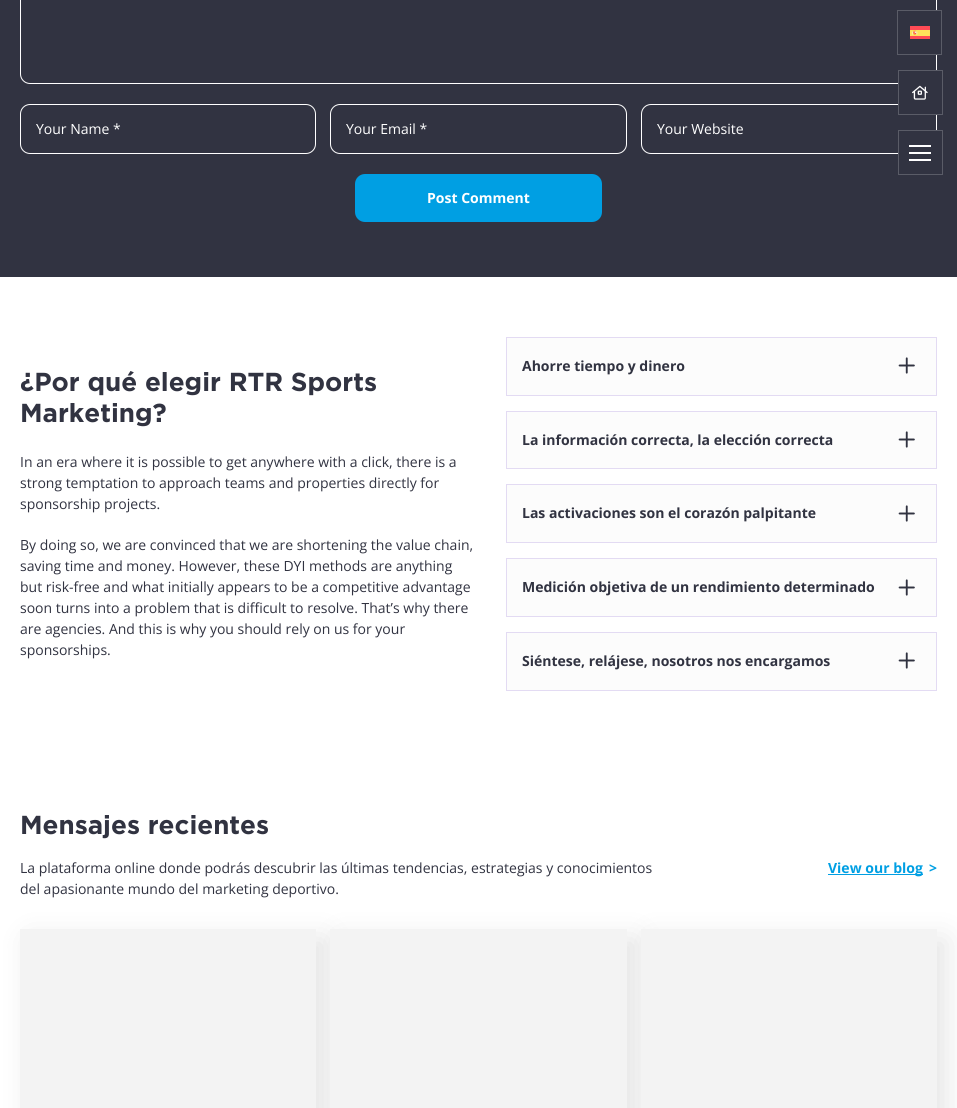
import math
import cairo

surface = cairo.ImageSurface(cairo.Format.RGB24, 957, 1108)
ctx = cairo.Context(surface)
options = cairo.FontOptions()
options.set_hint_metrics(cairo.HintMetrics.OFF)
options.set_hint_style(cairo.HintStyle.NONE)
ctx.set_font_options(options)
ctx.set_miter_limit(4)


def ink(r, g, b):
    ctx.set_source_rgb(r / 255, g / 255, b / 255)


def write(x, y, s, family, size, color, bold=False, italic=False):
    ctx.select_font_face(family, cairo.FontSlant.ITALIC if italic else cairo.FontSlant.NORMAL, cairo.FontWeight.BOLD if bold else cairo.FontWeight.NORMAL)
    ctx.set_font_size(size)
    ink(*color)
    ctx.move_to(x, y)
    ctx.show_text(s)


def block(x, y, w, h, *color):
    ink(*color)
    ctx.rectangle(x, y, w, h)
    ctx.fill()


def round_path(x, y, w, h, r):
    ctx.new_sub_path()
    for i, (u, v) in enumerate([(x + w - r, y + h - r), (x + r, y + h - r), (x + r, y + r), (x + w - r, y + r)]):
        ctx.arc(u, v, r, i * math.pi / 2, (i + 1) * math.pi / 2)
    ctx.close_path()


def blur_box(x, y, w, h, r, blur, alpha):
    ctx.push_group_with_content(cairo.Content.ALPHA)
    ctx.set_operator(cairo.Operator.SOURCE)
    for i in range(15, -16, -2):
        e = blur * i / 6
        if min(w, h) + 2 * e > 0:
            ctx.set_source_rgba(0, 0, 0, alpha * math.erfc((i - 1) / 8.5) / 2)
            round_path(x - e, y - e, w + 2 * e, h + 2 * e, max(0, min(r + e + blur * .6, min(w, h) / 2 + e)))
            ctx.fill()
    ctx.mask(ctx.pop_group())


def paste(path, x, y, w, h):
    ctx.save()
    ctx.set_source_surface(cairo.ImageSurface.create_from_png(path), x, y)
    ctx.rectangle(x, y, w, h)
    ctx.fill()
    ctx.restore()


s1 = dict(family="Open Sans", size=14, color=(255, 255, 255))
s2 = dict(family="Open Sans", size=14, color=(255, 255, 255), bold=True)
s3 = dict(family="Gotham", size=26, color=(49, 51, 65), bold=True)
s4 = dict(family="Open Sans", size=14, color=(49, 51, 65))
s5 = dict(family="Open Sans", size=14, color=(49, 51, 65), bold=True)
s6 = dict(family="Open Sans", size=14, color=(0, 159, 227), bold=True)

ink(255, 255, 255)
ctx.paint()
block(0, 0, 957, 277, 49, 51, 65)
round_path(20.5, -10.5, 916, 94, 9.5)
ink(255, 255, 255)
ctx.set_line_width(1)
ctx.stroke()
block(936, 11, 1, 43, 49, 51, 65)
ctx.rectangle(897.5, 10.5, 44, 44)
ink(90, 92, 103)
ctx.stroke()
paste("pic1.png", 910, 26, 20, 13)
round_path(641.5, 104.5, 295, 49, 9.5)
ink(255, 255, 255)
ctx.stroke()
block(899, 71, 38, 43, 49, 51, 65)
ctx.rectangle(898.5, 70.5, 44, 44)
ink(90, 92, 103)
ctx.stroke()
paste("pic2.png", 912, 85, 16, 15)
block(899, 131, 38, 23, 49, 51, 65)
ctx.rectangle(898.5, 130.5, 44, 44)
ink(90, 92, 103)
ctx.stroke()
block(909, 145, 22, 2, 255, 255, 255)
block(909, 152, 22, 2, 255, 255, 255)
block(909, 159, 22, 2, 255, 255, 255)
round_path(20.5, 104.5, 295, 49, 9.5)
ctx.stroke()
write(36, 134, "Your Name *", **s1)
round_path(330.5, 104.5, 296, 49, 9.5)
ctx.stroke()
write(346, 134, "Your Email *", **s1)
write(657, 134, "Your Website", **s1)
ink(0, 159, 227)
round_path(355, 174, 247, 48, 10)
ctx.fill()
write(427, 203, "Post Comment", **s2)
write(20, 391, "¿Por qué elegir RTR Sports", **s3)
write(20, 422, "Marketing?", **s3)
write(20, 467, "In an era where it is possible to get anywhere with a click, there is a", **s4)
write(20, 488, "strong temptation to approach teams and properties directly for", **s4)
write(20, 509, "sponsorship projects.", **s4)
write(20, 550, "By doing so, we are convinced that we are shortening the value chain,", **s4)
write(20, 571, "saving time and money. However, these DYI methods are anything", **s4)
write(20, 592, "but risk-free and what initially appears to be a competitive advantage", **s4)
write(20, 613, "soon turns into a problem that is difficult to resolve. That’s why there", **s4)
write(20, 634, "are agencies. And this is why you should rely on us for your", **s4)
write(20, 655, "sponsorships.", **s4)
ctx.rectangle(506.5, 337.5, 430, 58)
ink(227, 219, 243)
ctx.stroke()
block(507, 338, 429, 57, 252, 252, 252)
write(522, 371, "Ahorre tiempo y dinero", **s5)
paste("pic3.png", 898, 357, 17, 17)
ctx.rectangle(506.5, 411.5, 430, 57)
ink(227, 219, 243)
ctx.stroke()
block(507, 412, 429, 56, 252, 252, 252)
write(522, 445, "La información correcta, la elección correcta", **s5)
paste("pic3.png", 898, 431, 17, 17)
ctx.rectangle(506.5, 484.5, 430, 58)
ink(227, 219, 243)
ctx.stroke()
block(507, 485, 429, 57, 252, 252, 252)
write(522, 518, "Las activaciones son el corazón palpitante", **s5)
paste("pic3.png", 898, 505, 17, 17)
ctx.rectangle(506.5, 558.5, 430, 58)
ink(227, 219, 243)
ctx.stroke()
block(507, 559, 429, 57, 252, 252, 252)
write(522, 592, "Medición objetiva de un rendimiento determinado", **s5)
paste("pic3.png", 898, 579, 17, 17)
ctx.rectangle(506.5, 632.5, 430, 58)
ink(227, 219, 243)
ctx.stroke()
block(507, 633, 429, 57, 252, 252, 252)
write(522, 666, "Siéntese, relájese, nosotros nos encargamos", **s5)
paste("pic3.png", 898, 652, 17, 17)
write(20, 834, "Mensajes recientes", **s3)
write(20, 873, "La plataforma online donde podrás descubrir las últimas tendencias, estrategias y conocimientos", **s4)
ink(0, 0, 0)
blur_box(30, 939, 296, 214, 0, 15, 0.1)
blur_box(340, 939, 297, 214, 0, 15, 0.1)
write(20, 894, "del apasionante mundo del marketing deportivo.", **s4)
block(828, 874, 95, 1, 0, 159, 227)
write(828, 873, "View our blog", **s6)
write(929, 873, ">", **s6)
block(20, 929, 296, 179, 243, 243, 243)
ink(0, 0, 0)
blur_box(651, 939, 296, 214, 0, 15, 0.1)
block(330, 929, 297, 179, 243, 243, 243)
block(641, 929, 296, 179, 243, 243, 243)
surface.write_to_png("screenshot.png")
